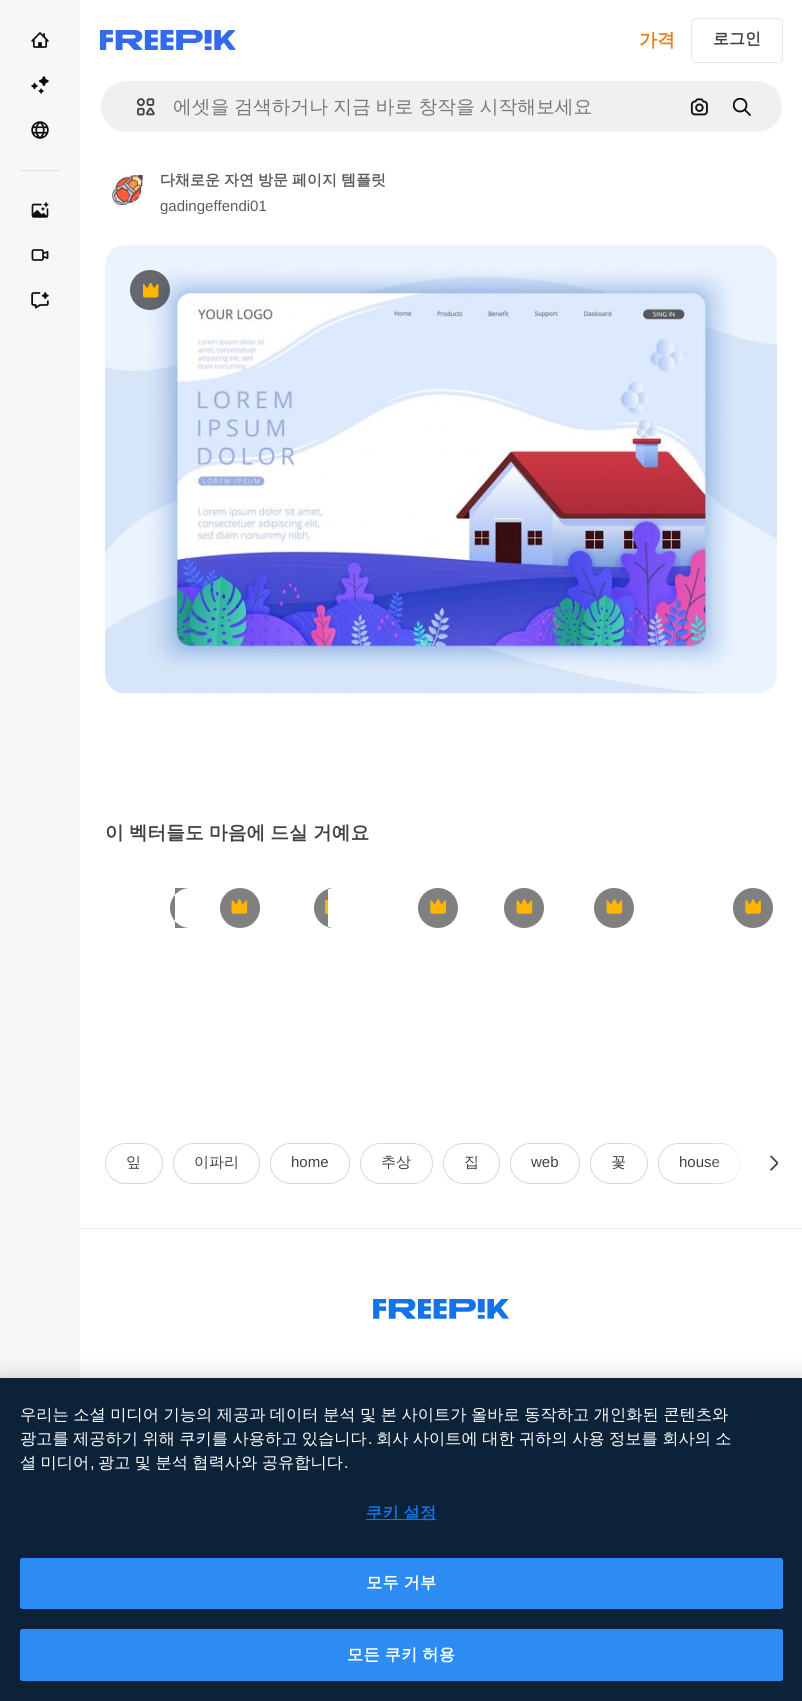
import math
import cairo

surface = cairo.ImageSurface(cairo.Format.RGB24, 802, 1701)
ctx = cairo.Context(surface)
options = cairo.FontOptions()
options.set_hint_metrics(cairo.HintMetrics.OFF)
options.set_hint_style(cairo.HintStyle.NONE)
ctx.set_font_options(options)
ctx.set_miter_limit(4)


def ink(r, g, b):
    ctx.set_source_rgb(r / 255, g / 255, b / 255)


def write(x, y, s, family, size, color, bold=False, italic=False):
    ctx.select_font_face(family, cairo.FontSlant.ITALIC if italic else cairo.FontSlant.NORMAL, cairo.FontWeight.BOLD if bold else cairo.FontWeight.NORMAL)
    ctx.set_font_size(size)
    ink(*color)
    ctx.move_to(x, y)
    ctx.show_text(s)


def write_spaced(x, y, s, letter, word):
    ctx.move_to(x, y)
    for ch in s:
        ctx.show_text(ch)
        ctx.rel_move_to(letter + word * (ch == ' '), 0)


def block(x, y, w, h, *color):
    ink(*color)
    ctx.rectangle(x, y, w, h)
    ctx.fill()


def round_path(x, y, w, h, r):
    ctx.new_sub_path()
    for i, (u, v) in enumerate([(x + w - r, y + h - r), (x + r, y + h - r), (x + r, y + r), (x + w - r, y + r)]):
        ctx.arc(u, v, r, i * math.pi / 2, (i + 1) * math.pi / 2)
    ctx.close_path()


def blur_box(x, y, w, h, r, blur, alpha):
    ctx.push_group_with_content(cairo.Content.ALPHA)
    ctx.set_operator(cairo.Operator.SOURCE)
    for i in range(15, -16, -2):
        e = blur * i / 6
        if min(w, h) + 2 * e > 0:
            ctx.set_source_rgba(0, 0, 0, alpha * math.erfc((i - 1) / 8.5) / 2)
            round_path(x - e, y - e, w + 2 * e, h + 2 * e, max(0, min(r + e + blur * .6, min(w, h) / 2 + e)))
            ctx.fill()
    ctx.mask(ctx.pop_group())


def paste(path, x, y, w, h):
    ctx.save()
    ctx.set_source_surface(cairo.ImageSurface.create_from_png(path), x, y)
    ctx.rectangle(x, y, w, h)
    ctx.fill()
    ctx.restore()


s1 = dict(family="WenQuanYi Zen Hei", size=18, color=(234, 126, 17), bold=True)
s2 = dict(family="WenQuanYi Zen Hei", size=16, color=(66, 66, 66), bold=True)
s3 = dict(family="Liberation Sans", size=15, color=(92, 92, 92))
s4 = dict(family="WenQuanYi Zen Hei Medium", size=15, color=(66, 66, 66))
s5 = dict(family="Liberation Sans", size=15, color=(66, 66, 66))
s6 = dict(family="Liberation Sans", size=16.25, color=(255, 255, 255))

ink(255, 255, 255)
ctx.paint()
block(0, 0, 80, 1378, 247, 247, 247)
paste("pic1.png", 31, 32, 18, 16)
paste("pic2.png", 31, 76, 18, 18)
paste("pic3.png", 31, 121, 18, 18)
block(20, 170, 40, 1, 224, 224, 224)
paste("pic4.png", 31, 202, 18, 16)
paste("pic5.png", 31, 249, 18, 12)
paste("pic6.png", 31, 292, 18, 17)
paste("pic7.png", 100, 30, 136, 20)
write(639, 46, "가격", **s1)
round_path(691.5, 18.5, 91, 44, 4.5)
ink(231, 231, 231)
ctx.set_line_width(1)
ctx.stroke()
write(713, 44, "로그인", **s2)
ink(240, 240, 240)
round_path(100.5, 80.5, 682, 52, 26)
ctx.fill_preserve()
ink(255, 255, 255)
ctx.stroke()
paste("pic8.png", 136, 98, 19, 18)
ctx.select_font_face("WenQuanYi Zen Hei Medium")
ctx.set_font_size(18.75)
ink(119, 119, 119)
write_spaced(173, 113, "에셋을 검색하거나 지금 바로 창작을 시작해보세요", 0, -0.5)
paste("pic9.png", 690, 98, 18, 18)
paste("pic10.png", 733, 98, 18, 18)
paste("pic11.png", 112, 174, 32, 33)
ctx.select_font_face("WenQuanYi Zen Hei", cairo.FontSlant.NORMAL, cairo.FontWeight.BOLD)
ctx.set_font_size(15)
ink(92, 92, 92)
write_spaced(160, 185, "다채로운 자연 방문 페이지 템플릿", 0, -0.5)
write(160, 211, "gadingeffendi01", **s3)
paste("pic12.png", 105, 245, 672, 449)
ctx.set_source_rgba(0.051, 0.051, 0.051, 0.6)
ctx.arc(150, 290, 20, 0, 2 * math.pi)
ctx.fill()
paste("pic13.png", 143, 283, 16, 15)
ctx.select_font_face("WenQuanYi Zen Hei", cairo.FontSlant.NORMAL, cairo.FontWeight.BOLD)
ctx.set_font_size(18.75)
ink(66, 66, 66)
write_spaced(105, 839, "이 벡터들도 마음에 드실 거예요", 0, -0.5)
ink(128, 128, 128)
ctx.new_path()
ctx.move_to(190, 888)
ctx.line_to(175, 888)
ctx.line_to(175, 928)
ctx.line_to(190, 928)
ctx.curve_to(179, 928, 170, 919, 170, 908)
ctx.curve_to(170, 897, 179, 888, 190, 888)
ctx.close_path()
ctx.fill()
ctx.arc(240, 908, 20, 0, 2 * math.pi)
ctx.fill()
paste("pic14.png", 231, 899, 17, 15)
ctx.new_path()
ctx.move_to(334, 888)
ctx.line_to(328, 888)
ctx.line_to(328, 928)
ctx.line_to(334, 928)
ctx.curve_to(323, 928, 314, 919, 314, 908)
ctx.curve_to(314, 897, 323, 888, 334, 888)
ctx.close_path()
ctx.fill()
block(325, 900, 3, 14, 254, 182, 2)
ink(128, 128, 128)
ctx.arc(438, 908, 20, 0, 2 * math.pi)
ctx.fill()
paste("pic15.png", 430, 899, 16, 15)
ctx.arc(524, 908, 20, 0, 2 * math.pi)
ctx.fill()
paste("pic14.png", 516, 899, 17, 15)
ctx.arc(614, 908, 20, 0, 2 * math.pi)
ctx.fill()
paste("pic14.png", 606, 899, 17, 15)
ctx.arc(753, 908, 20, 0, 2 * math.pi)
ctx.fill()
paste("pic15.png", 745, 899, 16, 15)
round_path(105.5, 1143.5, 57, 40, 20)
ink(216, 216, 216)
ctx.stroke()
write(126, 1167, "잎", **s4)
round_path(173.5, 1143.5, 86, 40, 20)
ink(216, 216, 216)
ctx.stroke()
write(194, 1167, "이파리", **s4)
round_path(270.5, 1143.5, 79, 40, 20)
ink(216, 216, 216)
ctx.stroke()
write(291, 1167, "home", **s5)
round_path(360.5, 1143.5, 72, 40, 20)
ink(216, 216, 216)
ctx.stroke()
write(381, 1167, "추상", **s4)
round_path(443.5, 1143.5, 56, 40, 20)
ink(216, 216, 216)
ctx.stroke()
write(464, 1167, "집", **s4)
round_path(510.5, 1143.5, 69, 40, 20)
ink(216, 216, 216)
ctx.stroke()
write(531, 1167, "web", **s5)
round_path(590.5, 1143.5, 57, 40, 20)
ink(216, 216, 216)
ctx.stroke()
write(611, 1167, "꽃", **s4)
round_path(658.5, 1143.5, 82, 40, 20)
ink(216, 216, 216)
ctx.stroke()
write(679, 1167, "house", **s5)
ctx.save()
ctx.rectangle(105, 1143, 673, 41)
ctx.clip()
round_path(751.5, 1143.5, 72, 40, 20)
ink(216, 216, 216)
ctx.stroke()
ctx.restore()
block(753, 1143, 25, 41, 255, 255, 255)
gradient = cairo.LinearGradient(753, 1163, 709, 1163)
gradient.add_color_stop_rgba(0, 1, 1, 1, 1)
gradient.add_color_stop_rgba(1, 1, 1, 1, 0)
ctx.set_source(gradient)
ctx.rectangle(710, 1143, 43, 41)
ctx.fill()
paste("pic16.png", 770, 1155, 8, 16)
block(80, 1228, 722, 1, 240, 240, 240)
paste("pic17.png", 373, 1299, 136, 20)
ink(0, 0, 0)
blur_box(0, 1378, 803, 323, 0, 11, 0.2)
block(0, 1378, 802, 323, 11, 34, 57)
ctx.select_font_face("WenQuanYi Zen Hei Medium")
ctx.set_font_size(16.25)
ink(255, 255, 255)
write_spaced(20, 1420, "우리는 소셜 미디어 기능의 제공과 데이터 분석 및 본 사이트가 올바로 동작하고 개인화된 콘텐츠와", 0, -0.4)
write_spaced(20, 1444, "광고를 제공하기 위해 쿠키를 사용하고 있습니다", 0, -0.5)
write(368, 1444, ".", **s6)
ctx.select_font_face("WenQuanYi Zen Hei Medium")
write_spaced(376, 1444, "회사 사이트에 대한 귀하의 사용 정보를 회사의 소", 0, -0.5)
write_spaced(20, 1468, "셜 미디어", 0, -0.5)
write(90, 1468, ",", **s6)
ctx.select_font_face("WenQuanYi Zen Hei Medium")
write_spaced(98, 1468, "광고 및 분석 협력사와 공유합니다", 0, -0.5)
write(344, 1468, ".", **s6)
block(366, 1519, 70, 1, 18, 115, 235)
ctx.select_font_face("WenQuanYi Zen Hei", cairo.FontSlant.NORMAL, cairo.FontWeight.BOLD)
write_spaced(366, 1518, "쿠키 설정", 0.25, -0.5)
ink(44, 140, 244)
round_path(20.5, 1558.5, 762, 50, 2)
ctx.fill_preserve()
ctx.stroke()
ink(255, 255, 255)
write_spaced(366, 1588, "모두 거부", 0.25, -0.5)
ink(44, 140, 244)
round_path(20.5, 1629.5, 762, 51, 2)
ctx.fill_preserve()
ctx.stroke()
ink(255, 255, 255)
write_spaced(347, 1660, "모든 쿠키 허용", 0.25, -0.5)
surface.write_to_png("screenshot.png")
